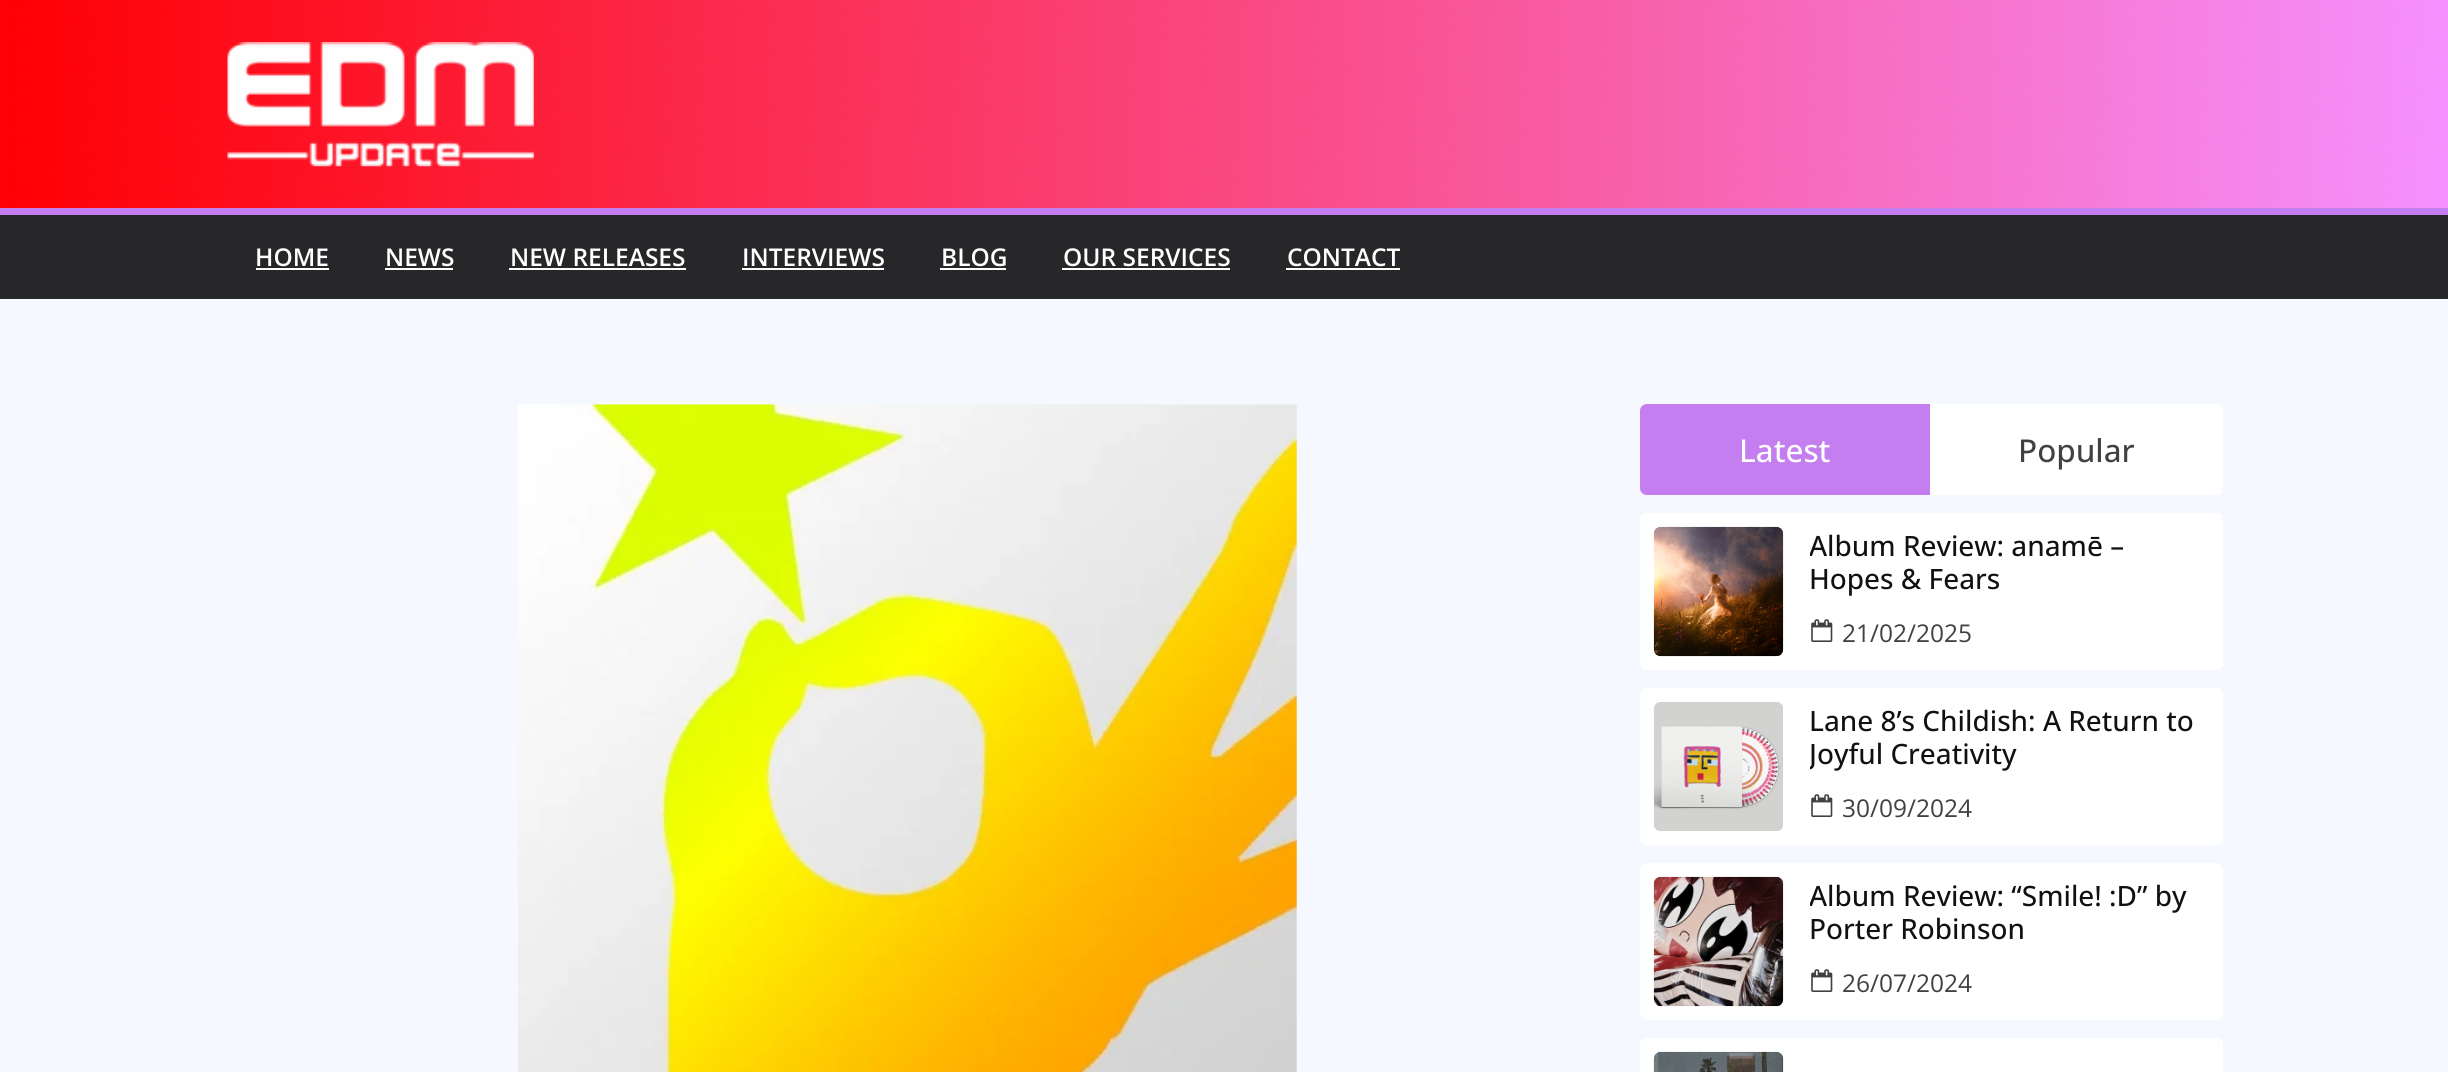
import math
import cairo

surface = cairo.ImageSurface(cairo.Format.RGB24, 2448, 1072)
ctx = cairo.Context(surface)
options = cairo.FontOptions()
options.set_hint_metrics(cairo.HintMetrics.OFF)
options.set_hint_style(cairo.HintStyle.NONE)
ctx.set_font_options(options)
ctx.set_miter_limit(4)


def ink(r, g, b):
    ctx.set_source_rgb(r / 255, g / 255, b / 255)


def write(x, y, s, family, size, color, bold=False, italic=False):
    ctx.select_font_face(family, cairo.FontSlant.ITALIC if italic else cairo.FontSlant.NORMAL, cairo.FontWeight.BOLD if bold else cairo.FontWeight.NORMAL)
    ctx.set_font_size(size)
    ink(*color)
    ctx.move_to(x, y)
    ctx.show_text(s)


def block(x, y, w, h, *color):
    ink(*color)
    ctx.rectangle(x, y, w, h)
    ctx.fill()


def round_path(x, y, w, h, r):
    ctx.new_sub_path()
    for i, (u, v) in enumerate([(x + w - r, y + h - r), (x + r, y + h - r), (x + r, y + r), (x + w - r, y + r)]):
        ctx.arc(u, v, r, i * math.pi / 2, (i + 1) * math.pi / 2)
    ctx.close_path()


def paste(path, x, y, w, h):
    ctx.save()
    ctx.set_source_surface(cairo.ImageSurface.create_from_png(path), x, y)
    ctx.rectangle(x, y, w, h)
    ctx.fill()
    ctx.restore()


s1 = dict(family="Open Sans SemiBold", size=24.5, color=(255, 255, 255))
s2 = dict(family="Open Sans Medium", size=31.5, color=(255, 255, 255))
s3 = dict(family="Open Sans Medium", size=31.5, color=(65, 65, 65))
s4 = dict(family="Open Sans Medium", size=28, color=(17, 17, 17))
s5 = dict(family="Open Sans", size=24.5, color=(65, 65, 65))

ink(255, 255, 255)
ctx.paint()
paste("pic1.png", 0, 0, 2448, 208)
paste("pic2.png", 227, 42, 307, 125)
block(0, 215, 2448, 84, 39, 39, 42)
block(0, 208, 2448, 7, 197, 126, 239)
write(255, 266, "HOME", **s1)
block(256, 268, 73, 2, 255, 255, 255)
write(385, 266, "NEWS", **s1)
block(385, 268, 68, 2, 255, 255, 255)
write(510, 266, "NEW RELEASES", **s1)
block(509, 268, 177, 2, 255, 255, 255)
write(742, 266, "INTERVIEWS", **s1)
block(742, 268, 142, 2, 255, 255, 255)
write(941, 266, "BLOG", **s1)
block(940, 268, 66, 2, 255, 255, 255)
write(1063, 266, "OUR SERVICES", **s1)
block(1062, 268, 168, 2, 255, 255, 255)
write(1287, 266, "CONTACT", **s1)
block(1286, 268, 114, 2, 255, 255, 255)
block(0, 299, 2448, 773, 245, 249, 255)
paste("pic3.png", 518, 404, 779, 668)
ink(197, 126, 239)
ctx.new_path()
ctx.move_to(1647, 404)
ctx.line_to(1930, 404)
ctx.line_to(1930, 495)
ctx.line_to(1647, 495)
ctx.curve_to(1643, 495, 1640, 492, 1640, 488)
ctx.line_to(1640, 411)
ctx.curve_to(1640, 407, 1643, 404, 1647, 404)
ctx.close_path()
ctx.fill()
write(1739, 462, "Latest", **s2)
ctx.new_path()
ctx.move_to(1930, 404)
ctx.line_to(2216, 404)
ctx.curve_to(2220, 404, 2223, 407, 2223, 411)
ctx.line_to(2223, 488)
ctx.curve_to(2223, 492, 2220, 495, 2216, 495)
ctx.line_to(1930, 495)
ctx.close_path()
ctx.fill()
write(2018, 462, "Popular", **s3)
ink(255, 255, 255)
round_path(1640, 513, 583, 157, 7)
ctx.fill()
paste("pic4.png", 1653, 526, 131, 131)
ctx.save()
ctx.rectangle(1810, 530, 399, 67)
ctx.clip()
write(1809, 556, "Album Review: anamē –", **s4)
ctx.restore()
write(1809, 589, "Hopes & Fears", **s4)
paste("pic5.png", 1811, 619, 22, 23)
write(1842, 642, "21/02/2025", **s5)
ink(255, 255, 255)
round_path(1640, 688, 583, 157, 7)
ctx.fill()
paste("pic6.png", 1653, 702, 130, 129)
write(1809, 731, "Lane 8’s Childish: A Return to", **s4)
ctx.save()
ctx.rectangle(1810, 705, 399, 67)
ctx.clip()
write(1809, 764, "Joyful Creativity", **s4)
ctx.restore()
paste("pic5.png", 1811, 794, 22, 23)
write(1842, 817, "30/09/2024", **s5)
ink(255, 255, 255)
round_path(1640, 863, 583, 157, 7)
ctx.fill()
paste("pic7.png", 1653, 876, 131, 131)
ctx.save()
ctx.rectangle(1810, 880, 399, 67)
ctx.clip()
write(1809, 906, "Album Review: “Smile! :D” by", **s4)
ctx.restore()
write(1809, 939, "Porter Robinson", **s4)
paste("pic5.png", 1811, 969, 22, 23)
write(1842, 992, "26/07/2024", **s5)
ink(255, 255, 255)
round_path(1640, 1038, 583, 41, 7)
ctx.fill()
paste("pic8.png", 1653, 1051, 131, 21)
surface.write_to_png("screenshot.png")
